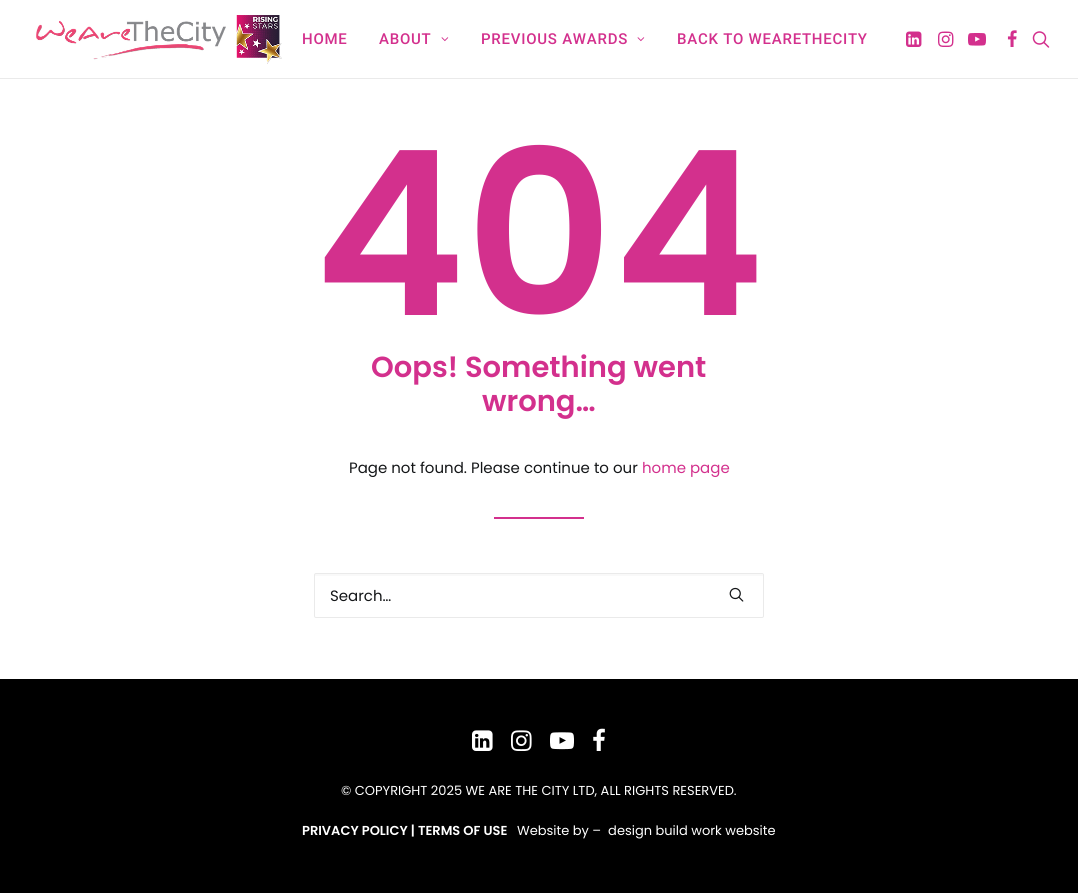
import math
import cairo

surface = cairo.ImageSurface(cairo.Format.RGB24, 1078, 893)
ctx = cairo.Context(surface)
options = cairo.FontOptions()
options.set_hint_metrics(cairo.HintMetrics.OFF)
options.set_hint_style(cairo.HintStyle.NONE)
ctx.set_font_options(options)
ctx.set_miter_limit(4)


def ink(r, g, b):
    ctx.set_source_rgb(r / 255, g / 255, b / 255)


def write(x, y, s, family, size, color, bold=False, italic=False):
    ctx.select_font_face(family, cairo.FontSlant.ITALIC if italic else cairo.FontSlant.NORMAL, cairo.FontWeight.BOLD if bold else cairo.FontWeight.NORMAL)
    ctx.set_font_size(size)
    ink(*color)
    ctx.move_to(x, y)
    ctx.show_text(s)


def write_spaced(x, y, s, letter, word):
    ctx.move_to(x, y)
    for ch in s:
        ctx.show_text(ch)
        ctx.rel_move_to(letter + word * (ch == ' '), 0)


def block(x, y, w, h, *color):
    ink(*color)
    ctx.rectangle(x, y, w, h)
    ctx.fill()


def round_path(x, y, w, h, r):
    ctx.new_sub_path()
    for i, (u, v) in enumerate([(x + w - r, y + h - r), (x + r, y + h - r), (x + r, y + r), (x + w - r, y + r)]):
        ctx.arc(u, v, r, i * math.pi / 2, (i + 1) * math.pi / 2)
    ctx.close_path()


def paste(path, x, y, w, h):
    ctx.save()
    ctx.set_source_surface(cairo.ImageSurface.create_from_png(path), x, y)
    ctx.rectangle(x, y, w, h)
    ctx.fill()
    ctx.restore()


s1 = dict(family="Poppins SemiBold", size=229, color=(211, 48, 141))
s2 = dict(family="Poppins SemiBold", size=29, color=(211, 48, 141))
s3 = dict(family="Poppins", size=15, color=(20, 22, 24))
s4 = dict(family="Poppins", size=15, color=(211, 48, 141))
s5 = dict(family="Poppins", size=13, color=(255, 255, 255))
s6 = dict(family="Poppins SemiBold", size=13, color=(255, 255, 255))

ink(255, 255, 255)
ctx.paint()
block(0, 78, 1078, 1, 234, 234, 234)
paste("pic1.png", 36, 15, 246, 49)
ctx.select_font_face("Roboto Medium")
ctx.set_font_size(15)
ink(211, 48, 141)
write_spaced(302, 44, "HOME", 0.75, 0)
write_spaced(379, 44, "ABOUT", 0.75, 0)
paste("pic2.png", 441, 37, 8, 5)
write_spaced(481, 44, "PREVIOUS AWARDS", 0.75, 0)
paste("pic2.png", 637, 37, 8, 5)
write_spaced(677, 44, "BACK TO WEARETHECITY", 0.75, 0)
paste("pic3.png", 906, 31, 16, 16)
paste("pic4.png", 938, 31, 16, 16)
paste("pic5.png", 968, 33, 18, 13)
paste("pic6.png", 1007, 30, 10, 17)
paste("pic7.png", 1032, 31, 18, 17)
write(314, 315, "404", **s1)
write(371, 377, "Oops! Something went", **s2)
write(482, 411, "wrong…", **s2)
write(349, 473, "Page not found. Please continue to our", **s3)
write(642, 473, "home page", **s4)
block(494, 517, 90, 2, 211, 48, 141)
ink(249, 249, 249)
ctx.new_path()
ctx.move_to(316, 576)
ctx.line_to(762, 576)
ctx.curve_to(763, 576, 763, 576, 763, 577)
ctx.curve_to(763, 576, 763, 574, 762, 574)
ctx.line_to(316, 574)
ctx.line_to(315, 574)
ctx.line_to(315, 577)
ctx.curve_to(315, 576, 315, 576, 316, 576)
ctx.close_path()
ctx.fill()
round_path(314.5, 573.5, 449, 44, 1.5)
ink(234, 234, 234)
ctx.set_line_width(1)
ctx.stroke()
write(330, 601, "Search…", **s3)
paste("pic8.png", 729, 587, 15, 15)
block(0, 679, 1078, 214, 0, 0, 0)
paste("pic9.png", 472, 730, 21, 21)
paste("pic10.png", 511, 730, 21, 21)
paste("pic11.png", 550, 732, 24, 18)
paste("pic12.png", 593, 728, 12, 23)
write(341, 795, "© COPYRIGHT 2025 WE ARE THE CITY LTD, ALL RIGHTS RESERVED.", **s5)
write(302, 835, "PRIVACY POLICY | TERMS OF USE", **s6)
write(517, 835, "Website by –  design build work website", **s5)
surface.write_to_png("screenshot.png")
